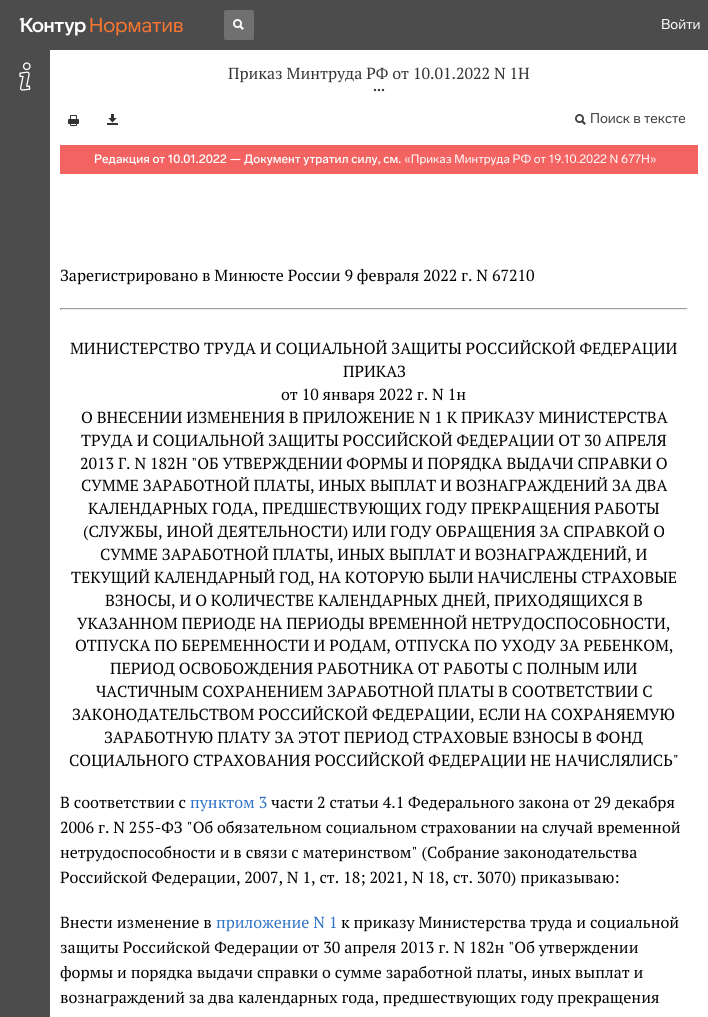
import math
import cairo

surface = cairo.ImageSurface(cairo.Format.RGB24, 708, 1017)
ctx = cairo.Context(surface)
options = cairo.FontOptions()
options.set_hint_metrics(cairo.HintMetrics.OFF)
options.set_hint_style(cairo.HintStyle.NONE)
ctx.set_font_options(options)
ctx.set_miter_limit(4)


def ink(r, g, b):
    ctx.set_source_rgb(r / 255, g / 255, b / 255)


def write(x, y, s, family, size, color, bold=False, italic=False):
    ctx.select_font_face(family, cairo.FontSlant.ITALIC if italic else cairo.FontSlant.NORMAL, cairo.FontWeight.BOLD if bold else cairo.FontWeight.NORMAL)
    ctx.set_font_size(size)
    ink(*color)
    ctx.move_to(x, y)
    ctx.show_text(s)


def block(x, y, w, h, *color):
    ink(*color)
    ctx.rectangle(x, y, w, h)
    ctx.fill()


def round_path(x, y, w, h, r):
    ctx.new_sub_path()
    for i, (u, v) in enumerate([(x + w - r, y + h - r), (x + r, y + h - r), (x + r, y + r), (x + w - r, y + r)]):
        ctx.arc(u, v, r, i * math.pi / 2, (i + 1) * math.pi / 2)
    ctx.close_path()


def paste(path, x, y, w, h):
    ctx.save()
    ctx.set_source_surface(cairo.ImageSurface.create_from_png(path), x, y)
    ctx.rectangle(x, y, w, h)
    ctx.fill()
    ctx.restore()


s1 = dict(family="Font", size=14, color=(255, 255, 255))
s2 = dict(family="PT Serif", size=16, color=(51, 51, 51))
s3 = dict(family="Font", size=14, color=(64, 64, 64))
s4 = dict(family="Font Medium", size=12, color=(255, 255, 255))
s5 = dict(family="Font", size=12, color=(255, 255, 255))
s6 = dict(family="PT Serif", size=16, color=(0, 0, 0))
s7 = dict(family="PT Serif", size=16, color=(48, 114, 196))

ink(255, 255, 255)
ctx.paint()
block(0, 0, 708, 50, 76, 76, 76)
paste("pic1.png", 19, 17, 67, 19)
paste("pic2.png", 90, 17, 93, 19)
ink(112, 112, 112)
round_path(224, 10, 30, 30, 2)
ctx.fill()
paste("pic3.png", 233, 19, 11, 11)
write(661, 29, "Войти", **s1)
block(0, 50, 50, 967, 76, 76, 76)
paste("pic4.png", 19, 62, 12, 29)
write(228, 79, "Приказ Минтруда РФ от 10.01.2022 N 1Н", **s2)
paste("pic5.png", 373, 88, 12, 4)
paste("pic6.png", 68, 115, 11, 11)
paste("pic7.png", 107, 114, 11, 11)
paste("pic8.png", 575, 114, 11, 11)
write(590, 123, "Поиск в тексте", **s3)
block(60, 145, 638, 29, 242, 99, 97)
write(94, 163, "Редакция от 10.01.2022 — Документ утратил силу, см.", **s4)
write(404, 163, "«Приказ Минтруда РФ от 19.10.2022 N 677Н»", **s5)
write(60, 281, "Зарегистрировано в Минюсте России 9 февраля 2022 г. N 67210", **s6)
block(60, 308, 628, 1, 159, 159, 159)
block(687, 308, 1, 2, 238, 238, 238)
block(60, 309, 628, 1, 238, 238, 238)
block(60, 308, 1, 2, 159, 159, 159)
write(70, 354, "МИНИСТЕРСТВО ТРУДА И СОЦИАЛЬНОЙ ЗАЩИТЫ РОССИЙСКОЙ ФЕДЕРАЦИИ", **s6)
write(343, 377, "ПРИКАЗ", **s6)
write(281, 400, "от 10 января 2022 г. N 1н", **s6)
write(81, 423, "О ВНЕСЕНИИ ИЗМЕНЕНИЯ В ПРИЛОЖЕНИЕ N 1 К ПРИКАЗУ МИНИСТЕРСТВА", **s6)
write(81, 446, "ТРУДА И СОЦИАЛЬНОЙ ЗАЩИТЫ РОССИЙСКОЙ ФЕДЕРАЦИИ ОТ 30 АПРЕЛЯ", **s6)
write(80, 469, "2013 Г. N 182Н \"ОБ УТВЕРЖДЕНИИ ФОРМЫ И ПОРЯДКА ВЫДАЧИ СПРАВКИ О", **s6)
write(81, 491, "СУММЕ ЗАРАБОТНОЙ ПЛАТЫ, ИНЫХ ВЫПЛАТ И ВОЗНАГРАЖДЕНИЙ ЗА ДВА", **s6)
write(88, 514, "КАЛЕНДАРНЫХ ГОДА, ПРЕДШЕСТВУЮЩИХ ГОДУ ПРЕКРАЩЕНИЯ РАБОТЫ", **s6)
write(83, 537, "(СЛУЖБЫ, ИНОЙ ДЕЯТЕЛЬНОСТИ) ИЛИ ГОДУ ОБРАЩЕНИЯ ЗА СПРАВКОЙ О", **s6)
write(100, 560, "СУММЕ ЗАРАБОТНОЙ ПЛАТЫ, ИНЫХ ВЫПЛАТ И ВОЗНАГРАЖДЕНИЙ, И", **s6)
write(71, 583, "ТЕКУЩИЙ КАЛЕНДАРНЫЙ ГОД, НА КОТОРУЮ БЫЛИ НАЧИСЛЕНЫ СТРАХОВЫЕ", **s6)
write(105, 606, "ВЗНОСЫ, И О КОЛИЧЕСТВЕ КАЛЕНДАРНЫХ ДНЕЙ, ПРИХОДЯЩИХСЯ В", **s6)
write(77, 629, "УКАЗАННОМ ПЕРИОДЕ НА ПЕРИОДЫ ВРЕМЕННОЙ НЕТРУДОСПОСОБНОСТИ,", **s6)
write(75, 651, "ОТПУСКА ПО БЕРЕМЕННОСТИ И РОДАМ, ОТПУСКА ПО УХОДУ ЗА РЕБЕНКОМ,", **s6)
write(110, 674, "ПЕРИОД ОСВОБОЖДЕНИЯ РАБОТНИКА ОТ РАБОТЫ С ПОЛНЫМ ИЛИ", **s6)
write(96, 697, "ЧАСТИЧНЫМ СОХРАНЕНИЕМ ЗАРАБОТНОЙ ПЛАТЫ В СООТВЕТСТВИИ С", **s6)
write(72, 720, "ЗАКОНОДАТЕЛЬСТВОМ РОССИЙСКОЙ ФЕДЕРАЦИИ, ЕСЛИ НА СОХРАНЯЕМУЮ", **s6)
write(104, 743, "ЗАРАБОТНУЮ ПЛАТУ ЗА ЭТОТ ПЕРИОД СТРАХОВЫЕ ВЗНОСЫ В ФОНД", **s6)
write(69, 766, "СОЦИАЛЬНОГО СТРАХОВАНИЯ РОССИЙСКОЙ ФЕДЕРАЦИИ НЕ НАЧИСЛЯЛИСЬ\"", **s6)
write(60, 808, "В соответствии с", **s6)
write(190, 808, "пунктом 3", **s7)
write(271, 808, "части 2 статьи 4.1 Федерального закона от 29 декабря", **s6)
write(60, 833, "2006 г. N 255-ФЗ \"Об обязательном социальном страховании на случай временной", **s6)
write(60, 858, "нетрудоспособности и в связи с материнством\" (Собрание законодательства", **s6)
write(60, 883, "Российской Федерации, 2007, N 1, ст. 18; 2021, N 18, ст. 3070) приказываю:", **s6)
write(60, 928, "Внести изменение в", **s6)
write(216, 928, "приложение N 1", **s7)
write(341, 928, "к приказу Министерства труда и социальной", **s6)
write(60, 953, "защиты Российской Федерации от 30 апреля 2013 г. N 182н \"Об утверждении", **s6)
write(60, 978, "формы и порядка выдачи справки о сумме заработной платы, иных выплат и", **s6)
write(60, 1003, "вознаграждений за два календарных года, предшествующих году прекращения", **s6)
surface.write_to_png("screenshot.png")
